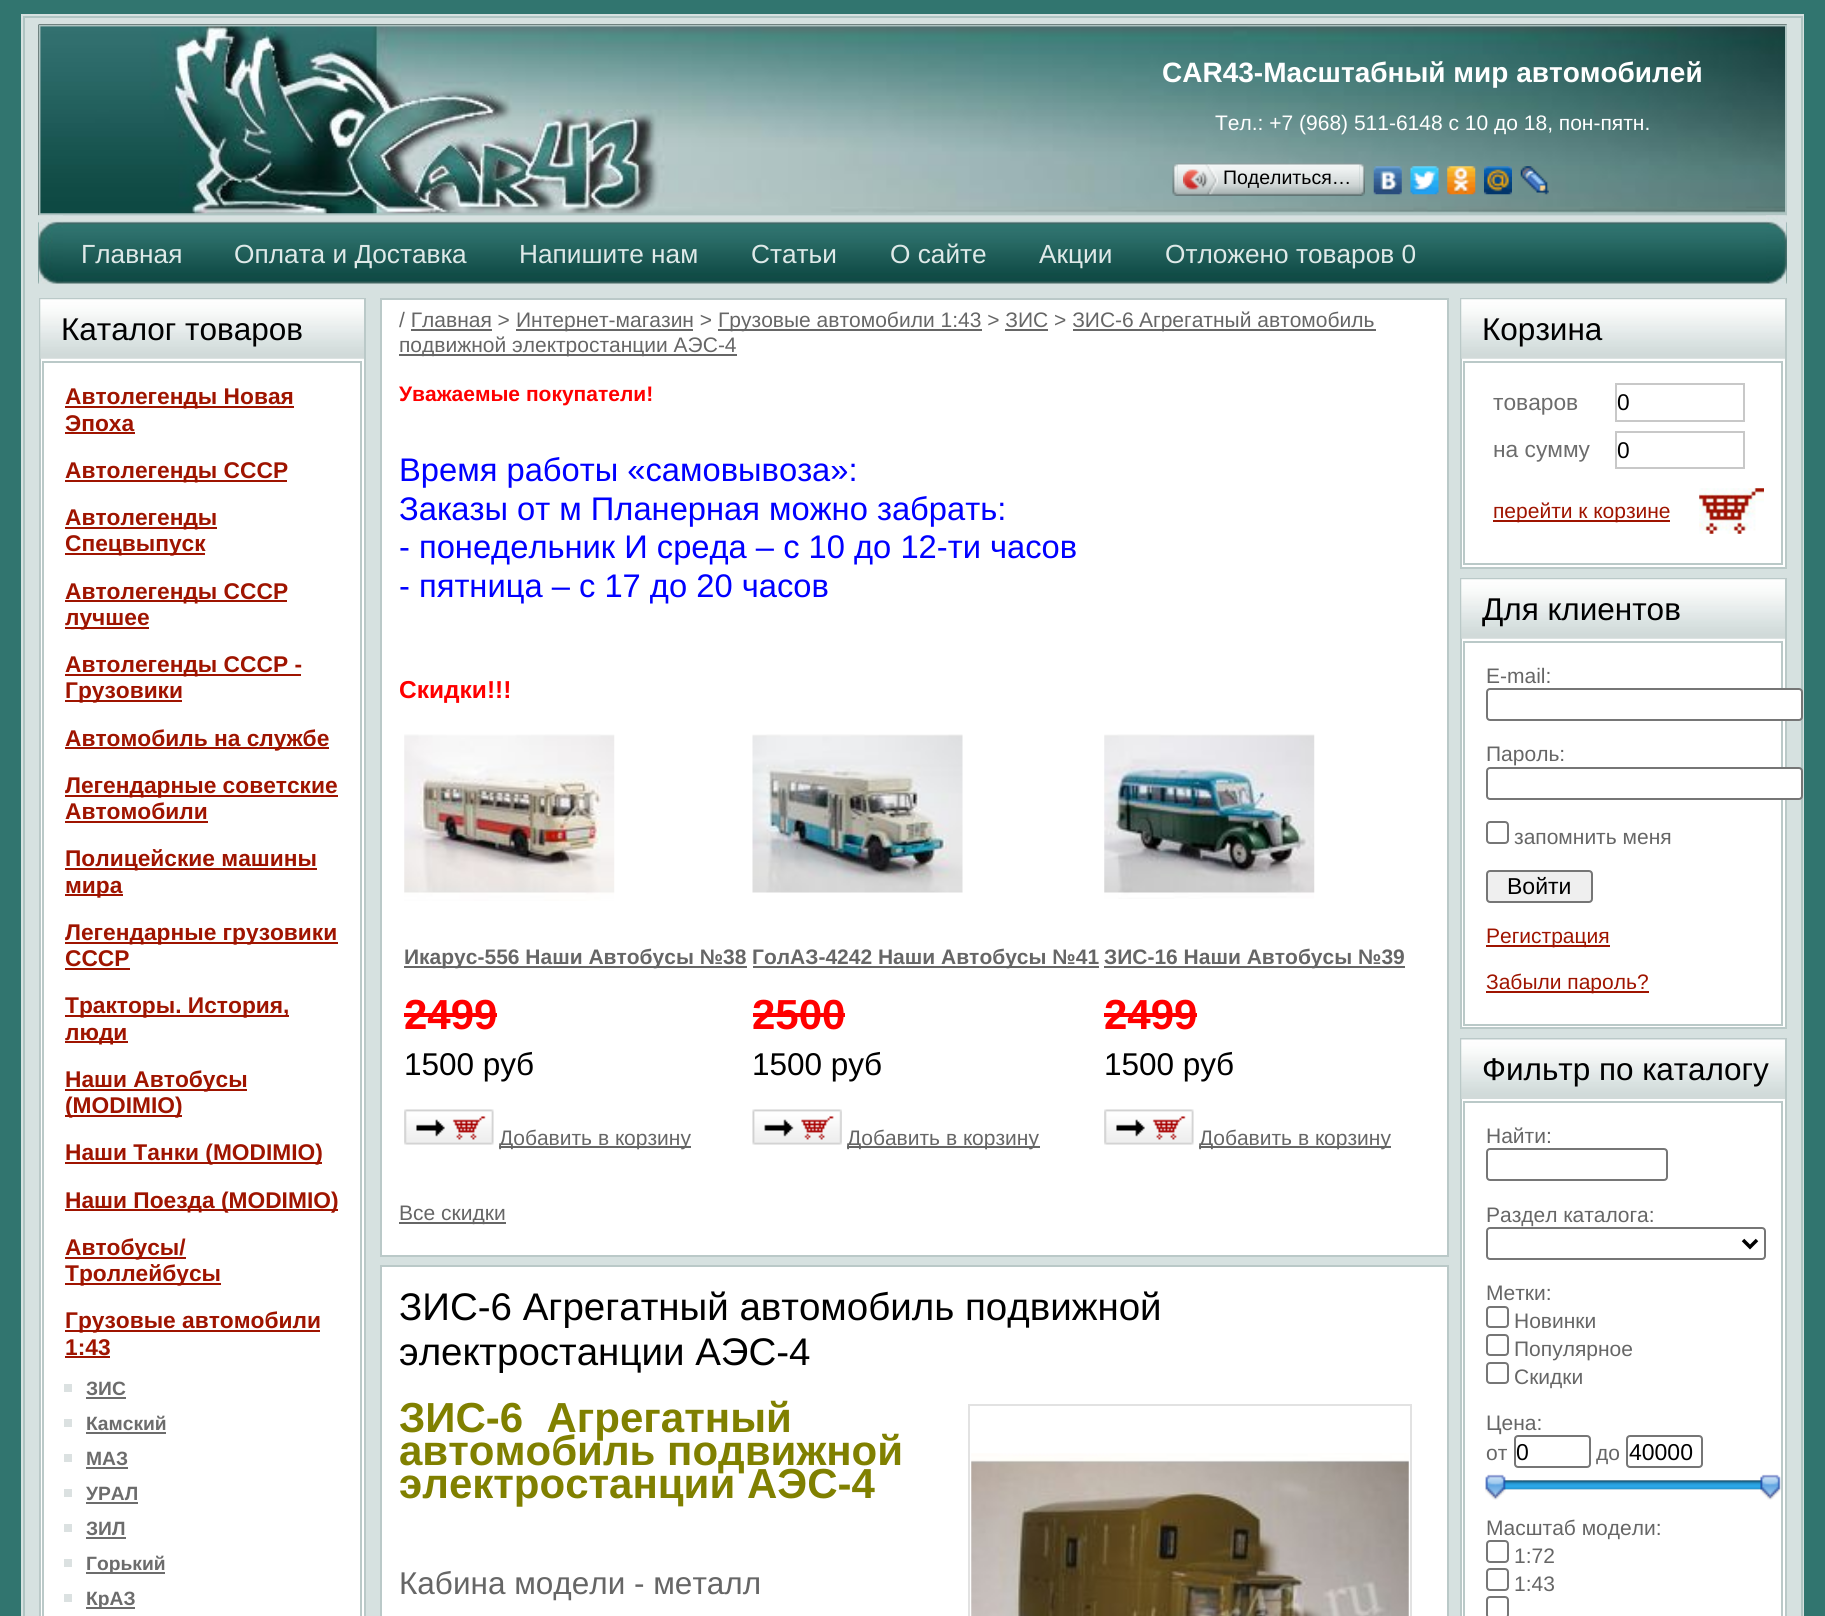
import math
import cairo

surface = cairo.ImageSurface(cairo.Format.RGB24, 1825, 1616)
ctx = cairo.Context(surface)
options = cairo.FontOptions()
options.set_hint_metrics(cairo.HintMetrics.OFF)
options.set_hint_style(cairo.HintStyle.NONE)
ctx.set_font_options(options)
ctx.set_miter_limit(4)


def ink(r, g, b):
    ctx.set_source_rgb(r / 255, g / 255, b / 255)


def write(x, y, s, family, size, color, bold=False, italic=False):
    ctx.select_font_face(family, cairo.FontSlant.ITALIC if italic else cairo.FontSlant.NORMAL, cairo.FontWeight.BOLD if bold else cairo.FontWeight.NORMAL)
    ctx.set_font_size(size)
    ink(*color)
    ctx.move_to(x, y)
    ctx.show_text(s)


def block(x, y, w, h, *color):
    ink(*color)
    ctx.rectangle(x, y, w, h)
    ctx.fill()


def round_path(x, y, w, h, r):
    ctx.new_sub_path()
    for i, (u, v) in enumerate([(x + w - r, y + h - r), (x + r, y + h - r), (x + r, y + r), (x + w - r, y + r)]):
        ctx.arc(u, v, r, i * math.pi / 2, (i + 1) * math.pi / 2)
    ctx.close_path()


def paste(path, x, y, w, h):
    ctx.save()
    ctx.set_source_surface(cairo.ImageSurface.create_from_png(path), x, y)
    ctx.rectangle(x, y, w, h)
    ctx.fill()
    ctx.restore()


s1 = dict(family="Liberation Sans", size=28, color=(255, 255, 255), bold=True)
s2 = dict(family="Liberation Sans", size=21, color=(255, 255, 255))
s3 = dict(family="Liberation Sans", size=19.5, color=(0, 0, 0))
s4 = dict(family="Liberation Sans", size=26.25, color=(222, 233, 232))
s5 = dict(family="Liberation Sans", size=31.5, color=(0, 0, 0))
s6 = dict(family="Liberation Sans", size=22.75, color=(159, 20, 0), bold=True)
s7 = dict(family="Liberation Sans", size=19.25, color=(108, 108, 108), bold=True)
s8 = dict(family="Liberation Sans", size=21, color=(102, 102, 102))
s9 = dict(family="Liberation Sans", size=21, color=(255, 0, 0), bold=True)
s10 = dict(family="Liberation Sans", size=32.7, color=(0, 0, 255))
s11 = dict(family="Liberation Sans", size=24.5, color=(255, 0, 0), bold=True)
s12 = dict(family="Liberation Sans", size=21, color=(102, 102, 102), bold=True)
s13 = dict(family="Liberation Sans", size=42, color=(255, 0, 0), bold=True)
s14 = dict(family="Liberation Sans", size=38.5, color=(0, 0, 0))
s15 = dict(family="Liberation Sans", size=42, color=(128, 128, 0), bold=True)
s16 = dict(family="Liberation Sans", size=31.5, color=(102, 102, 102))
s17 = dict(family="Liberation Sans", size=22.75, color=(108, 108, 108))
s18 = dict(family="Liberation Sans", size=22.75, color=(0, 0, 0))
s19 = dict(family="Liberation Sans", size=21, color=(159, 20, 0))
s20 = dict(family="Liberation Sans", size=23, color=(0, 0, 0))

ink(49, 117, 111)
ctx.paint()
ctx.rectangle(22, 15, 1781, 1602)
ink(214, 225, 224)
ctx.stroke()
ctx.rectangle(24, 17, 1778, 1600)
ctx.fill_preserve()
ink(175, 196, 194)
ctx.stroke()
paste("pic1.png", 38, 24, 1749, 192)
ctx.rectangle(40, 26, 1746, 188)
ctx.stroke()
paste("pic2.png", 40, 26, 1745, 188)
write(1162, 82, "CAR43-Масштабный мир автомобилей", **s1)
write(1215, 130, "Тел.: +7 (968) 511-6148 с 10 до 18, пон-пятн.", **s2)
paste("pic3.png", 1177, 163, 183, 33)
paste("pic4.png", 1172, 163, 6, 33)
paste("pic5.png", 1183, 164, 35, 31)
write(1223, 184, "Поделиться…", **s3)
paste("pic6.png", 1359, 163, 6, 33)
paste("pic7.png", 1373, 166, 29, 29)
paste("pic8.png", 1410, 166, 29, 29)
paste("pic9.png", 1447, 166, 29, 29)
paste("pic10.png", 1484, 166, 28, 29)
paste("pic11.png", 1520, 166, 29, 29)
paste("pic12.png", 38, 215, 1749, 69)
paste("pic13.png", 38, 215, 25, 69)
write(81, 263, "Главная", **s4)
write(234, 263, "Оплата и Доставка", **s4)
write(519, 263, "Напишите нам", **s4)
write(751, 263, "Статьи", **s4)
write(890, 263, "О сайте", **s4)
write(1039, 263, "Акции", **s4)
write(1165, 263, "Отложено товаров 0", **s4)
paste("pic14.png", 1766, 215, 21, 70)
block(41, 358, 323, 1258, 255, 255, 255)
ctx.rectangle(40, 299, 325, 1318)
ink(186, 201, 200)
ctx.stroke()
paste("pic15.png", 40, 299, 324, 60)
write(61, 340, "Каталог товаров", **s5)
ctx.rectangle(43, 362, 318, 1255)
ink(186, 201, 200)
ctx.stroke()
block(65, 406, 229, 2, 159, 20, 0)
write(65, 404, "Автолегенды Новая", **s6)
write(65, 431, "Эпоха", **s6)
block(65, 432, 70, 2, 159, 20, 0)
block(65, 480, 222, 2, 159, 20, 0)
write(65, 478, "Автолегенды СССР", **s6)
block(65, 527, 152, 2, 159, 20, 0)
write(65, 525, "Автолегенды", **s6)
block(65, 553, 140, 2, 159, 20, 0)
write(65, 551, "Спецвыпуск", **s6)
block(65, 600, 222, 2, 159, 20, 0)
write(65, 599, "Автолегенды СССР", **s6)
block(65, 627, 84, 2, 159, 20, 0)
write(65, 625, "лучшее", **s6)
block(65, 674, 236, 2, 159, 20, 0)
write(65, 672, "Автолегенды СССР -", **s6)
block(65, 700, 117, 2, 159, 20, 0)
write(65, 698, "Грузовики", **s6)
block(65, 747, 264, 2, 159, 20, 0)
write(65, 746, "Автомобиль на службе", **s6)
block(65, 795, 273, 2, 159, 20, 0)
write(65, 793, "Легендарные советские", **s6)
write(65, 819, "Автомобили", **s6)
block(65, 821, 143, 2, 159, 20, 0)
block(65, 868, 252, 2, 159, 20, 0)
write(65, 866, "Полицейские машины", **s6)
block(65, 894, 58, 2, 159, 20, 0)
write(65, 893, "мира", **s6)
block(65, 942, 273, 2, 159, 20, 0)
write(65, 940, "Легендарные грузовики", **s6)
write(65, 966, "СССР", **s6)
block(65, 968, 65, 2, 159, 20, 0)
block(65, 1015, 224, 2, 159, 20, 0)
write(65, 1013, "Тракторы. История,", **s6)
block(65, 1041, 63, 2, 159, 20, 0)
write(65, 1040, "люди", **s6)
block(65, 1089, 182, 2, 159, 20, 0)
write(65, 1087, "Наши Автобусы", **s6)
block(65, 1115, 117, 2, 159, 20, 0)
write(65, 1113, "(MODIMIO)", **s6)
block(65, 1162, 257, 2, 159, 20, 0)
write(65, 1160, "Наши Танки (MODIMIO)", **s6)
block(65, 1209, 273, 2, 159, 20, 0)
write(65, 1208, "Наши Поезда (MODIMIO)", **s6)
block(65, 1257, 121, 2, 159, 20, 0)
write(65, 1255, "Автобусы/", **s6)
block(65, 1283, 156, 2, 159, 20, 0)
write(65, 1281, "Троллейбусы", **s6)
block(65, 1330, 255, 2, 159, 20, 0)
write(65, 1328, "Грузовые автомобили", **s6)
write(65, 1355, "1:43", **s6)
block(65, 1356, 45, 2, 159, 20, 0)
block(64, 1384, 8, 8, 219, 225, 225)
write(86, 1395, "ЗИС", **s7)
block(86, 1397, 40, 2, 108, 108, 108)
block(64, 1419, 8, 8, 219, 225, 225)
write(86, 1430, "Камский", **s7)
block(86, 1432, 80, 2, 108, 108, 108)
block(64, 1454, 8, 8, 219, 225, 225)
write(86, 1465, "МАЗ", **s7)
block(86, 1467, 42, 2, 108, 108, 108)
block(64, 1489, 8, 8, 219, 225, 225)
write(86, 1500, "УРАЛ", **s7)
block(86, 1502, 52, 2, 108, 108, 108)
block(64, 1524, 8, 8, 219, 225, 225)
write(86, 1535, "ЗИЛ", **s7)
block(86, 1537, 40, 2, 108, 108, 108)
block(64, 1559, 8, 8, 219, 225, 225)
block(86, 1572, 79, 2, 108, 108, 108)
write(86, 1570, "Горький", **s7)
block(64, 1594, 8, 8, 219, 225, 225)
block(86, 1607, 49, 2, 108, 108, 108)
write(86, 1605, "КрАЗ", **s7)
ink(255, 255, 255)
ctx.rectangle(381, 299, 1067, 957)
ctx.fill_preserve()
ink(186, 201, 200)
ctx.stroke()
write(399, 327, "/ Главная >", **s8)
block(516, 329, 177, 2, 102, 102, 102)
write(516, 327, "Интернет-магазин >", **s8)
block(718, 329, 264, 2, 102, 102, 102)
write(718, 327, "Грузовые автомобили 1:43 > ЗИС > ЗИС-6", **s8)
block(1073, 329, 303, 2, 102, 102, 102)
write(1139, 327, "Агрегатный автомобиль", **s8)
block(411, 329, 81, 2, 102, 102, 102)
block(1005, 329, 43, 2, 102, 102, 102)
block(399, 354, 338, 2, 102, 102, 102)
write(399, 352, "подвижной электростанции АЭС-4", **s8)
write(399, 401, "Уважаемые покупатели!", **s9)
write(399, 481, "Время работы «самовывоза»:", **s10)
write(399, 520, "Заказы от м Планерная можно забрать:", **s10)
write(399, 558, "- понедельник И среда – с 10 до 12-ти часов", **s10)
write(399, 597, "- пятница – с 17 до 20 часов", **s10)
write(399, 698, "Скидки!!!", **s11)
paste("pic16.png", 404, 734, 211, 167)
block(404, 966, 343, 2, 102, 102, 102)
write(404, 964, "Икарус-556 Наши Автобусы №38", **s12)
write(404, 1029, "2499", **s13)
block(404, 1013, 93, 4, 255, 0, 0)
write(404, 1075, "1500 руб", **s5)
paste("pic17.png", 404, 1109, 90, 36)
block(499, 1146, 192, 2, 102, 102, 102)
write(499, 1145, "Добавить в корзину", **s8)
paste("pic18.png", 752, 734, 211, 159)
block(753, 966, 346, 2, 102, 102, 102)
write(752, 964, "ГолАЗ-4242 Наши Автобусы №41", **s12)
write(752, 1029, "2500", **s13)
block(753, 1013, 92, 4, 255, 0, 0)
write(752, 1075, "1500 руб", **s5)
paste("pic19.png", 752, 1109, 90, 36)
block(847, 1146, 193, 2, 102, 102, 102)
write(847, 1145, "Добавить в корзину", **s8)
paste("pic20.png", 1104, 734, 211, 165)
block(1104, 966, 301, 2, 102, 102, 102)
write(1104, 964, "ЗИС-16 Наши Автобусы №39", **s12)
write(1104, 1029, "2499", **s13)
block(1104, 1013, 93, 4, 255, 0, 0)
write(1104, 1075, "1500 руб", **s5)
paste("pic17.png", 1104, 1109, 90, 36)
block(1199, 1146, 192, 2, 102, 102, 102)
write(1199, 1145, "Добавить в корзину", **s8)
block(399, 1222, 107, 2, 102, 102, 102)
write(399, 1220, "Все скидки", **s8)
ink(255, 255, 255)
ctx.rectangle(381, 1266, 1067, 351)
ctx.fill_preserve()
ink(186, 201, 200)
ctx.stroke()
write(399, 1320, "ЗИС-6 Агрегатный автомобиль подвижной", **s14)
write(399, 1365, "электростанции АЭС-4", **s14)
write(399, 1432, "ЗИС-6  Агрегатный", **s15)
write(399, 1465, "автомобиль подвижной", **s15)
write(399, 1498, "электростанции АЭС-4", **s15)
write(399, 1594, "Кабина модели - металл", **s16)
ctx.rectangle(969, 1405, 442, 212)
ink(226, 226, 226)
ctx.stroke()
paste("pic21.png", 971, 1453, 438, 163)
block(1462, 358, 323, 209, 255, 255, 255)
ctx.rectangle(1461, 299, 325, 269)
ink(186, 201, 200)
ctx.stroke()
paste("pic15.png", 1461, 299, 324, 60)
write(1482, 340, "Корзина", **s5)
ctx.rectangle(1464, 362, 318, 202)
ink(186, 201, 200)
ctx.stroke()
write(1493, 410, "товаров", **s17)
ctx.rectangle(1616, 384, 128, 37)
ink(200, 200, 200)
ctx.stroke()
write(1617, 410, "0", **s18)
write(1493, 457, "на сумму", **s17)
ctx.rectangle(1616, 432, 128, 36)
ink(200, 200, 200)
ctx.stroke()
write(1617, 458, "0", **s18)
block(1493, 520, 177, 2, 159, 20, 0)
write(1493, 518, "перейти к корзине", **s19)
paste("pic22.png", 1699, 488, 65, 46)
block(1462, 638, 323, 389, 255, 255, 255)
ctx.rectangle(1461, 579, 325, 449)
ink(186, 201, 200)
ctx.stroke()
paste("pic15.png", 1461, 579, 324, 60)
write(1482, 620, "Для клиентов", **s5)
ctx.rectangle(1464, 642, 318, 383)
ink(186, 201, 200)
ctx.stroke()
write(1486, 683, "E-mail:", **s8)
ink(255, 255, 255)
round_path(1487, 689, 315, 31, 3)
ctx.fill_preserve()
ink(118, 118, 118)
ctx.stroke()
write(1486, 761, "Пароль:", **s8)
ink(255, 255, 255)
round_path(1487, 768, 315, 31, 3)
ctx.fill_preserve()
ink(118, 118, 118)
ctx.stroke()
round_path(1487, 822, 21, 21, 3)
ctx.stroke()
write(1514, 844, "запомнить меня", **s8)
ink(239, 239, 239)
round_path(1487, 871, 105, 31, 3)
ctx.fill_preserve()
ink(118, 118, 118)
ctx.stroke()
write(1507, 894, "Войти", **s20)
block(1486, 945, 124, 2, 159, 20, 0)
write(1486, 943, "Регистрация", **s19)
block(1486, 991, 163, 2, 159, 20, 0)
write(1486, 989, "Забыли пароль?", **s19)
block(1462, 1099, 323, 517, 255, 255, 255)
ctx.rectangle(1461, 1039, 325, 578)
ink(186, 201, 200)
ctx.stroke()
paste("pic23.png", 1461, 1039, 324, 60)
write(1482, 1080, "Фильтр по каталогу", **s5)
ctx.rectangle(1464, 1102, 318, 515)
ink(186, 201, 200)
ctx.stroke()
write(1486, 1143, "Найти:", **s8)
round_path(1487, 1149, 180, 31, 3)
ink(118, 118, 118)
ctx.stroke()
write(1486, 1222, "Раздел каталога:", **s8)
round_path(1487, 1228, 278, 31, 3)
ink(118, 118, 118)
ctx.stroke()
ctx.new_path()
ctx.move_to(1743, 1240)
ctx.line_to(1750, 1247)
ctx.line_to(1757, 1240)
ink(0, 0, 0)
ctx.set_line_width(3.5)
ctx.stroke()
write(1486, 1300, "Метки:", **s8)
round_path(1487, 1307, 21, 20, 3)
ink(118, 118, 118)
ctx.set_line_width(2)
ctx.stroke()
write(1514, 1328, "Новинки", **s8)
round_path(1487, 1335, 21, 20, 3)
ink(118, 118, 118)
ctx.stroke()
write(1514, 1356, "Популярное", **s8)
round_path(1487, 1363, 21, 20, 3)
ink(118, 118, 118)
ctx.stroke()
write(1514, 1384, "Скидки", **s8)
write(1486, 1430, "Цена:", **s8)
write(1486, 1460, "от", **s8)
round_path(1515, 1436, 75, 31, 3)
ink(118, 118, 118)
ctx.stroke()
write(1516, 1460, "0", **s20)
write(1596, 1460, "до", **s8)
round_path(1627, 1436, 75, 31, 3)
ink(118, 118, 118)
ctx.stroke()
write(1629, 1460, "40000", **s20)
paste("pic25.png", 1499, 1480, 24, 10)
paste("pic27.png", 1522, 1480, 220, 10)
paste("pic28.png", 1741, 1480, 26, 10)
paste("pic26.png", 1499, 1480, 268, 10)
paste("pic24.png", 1485, 1474, 21, 26)
paste("pic29.png", 1760, 1474, 21, 26)
write(1486, 1535, "Масштаб модели:", **s8)
round_path(1487, 1541, 21, 21, 3)
ink(118, 118, 118)
ctx.stroke()
write(1514, 1563, "1:72", **s8)
round_path(1487, 1569, 21, 21, 3)
ink(118, 118, 118)
ctx.stroke()
write(1514, 1591, "1:43", **s8)
round_path(1487, 1597, 21, 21, 3)
ink(118, 118, 118)
ctx.stroke()
surface.write_to_png("screenshot.png")
